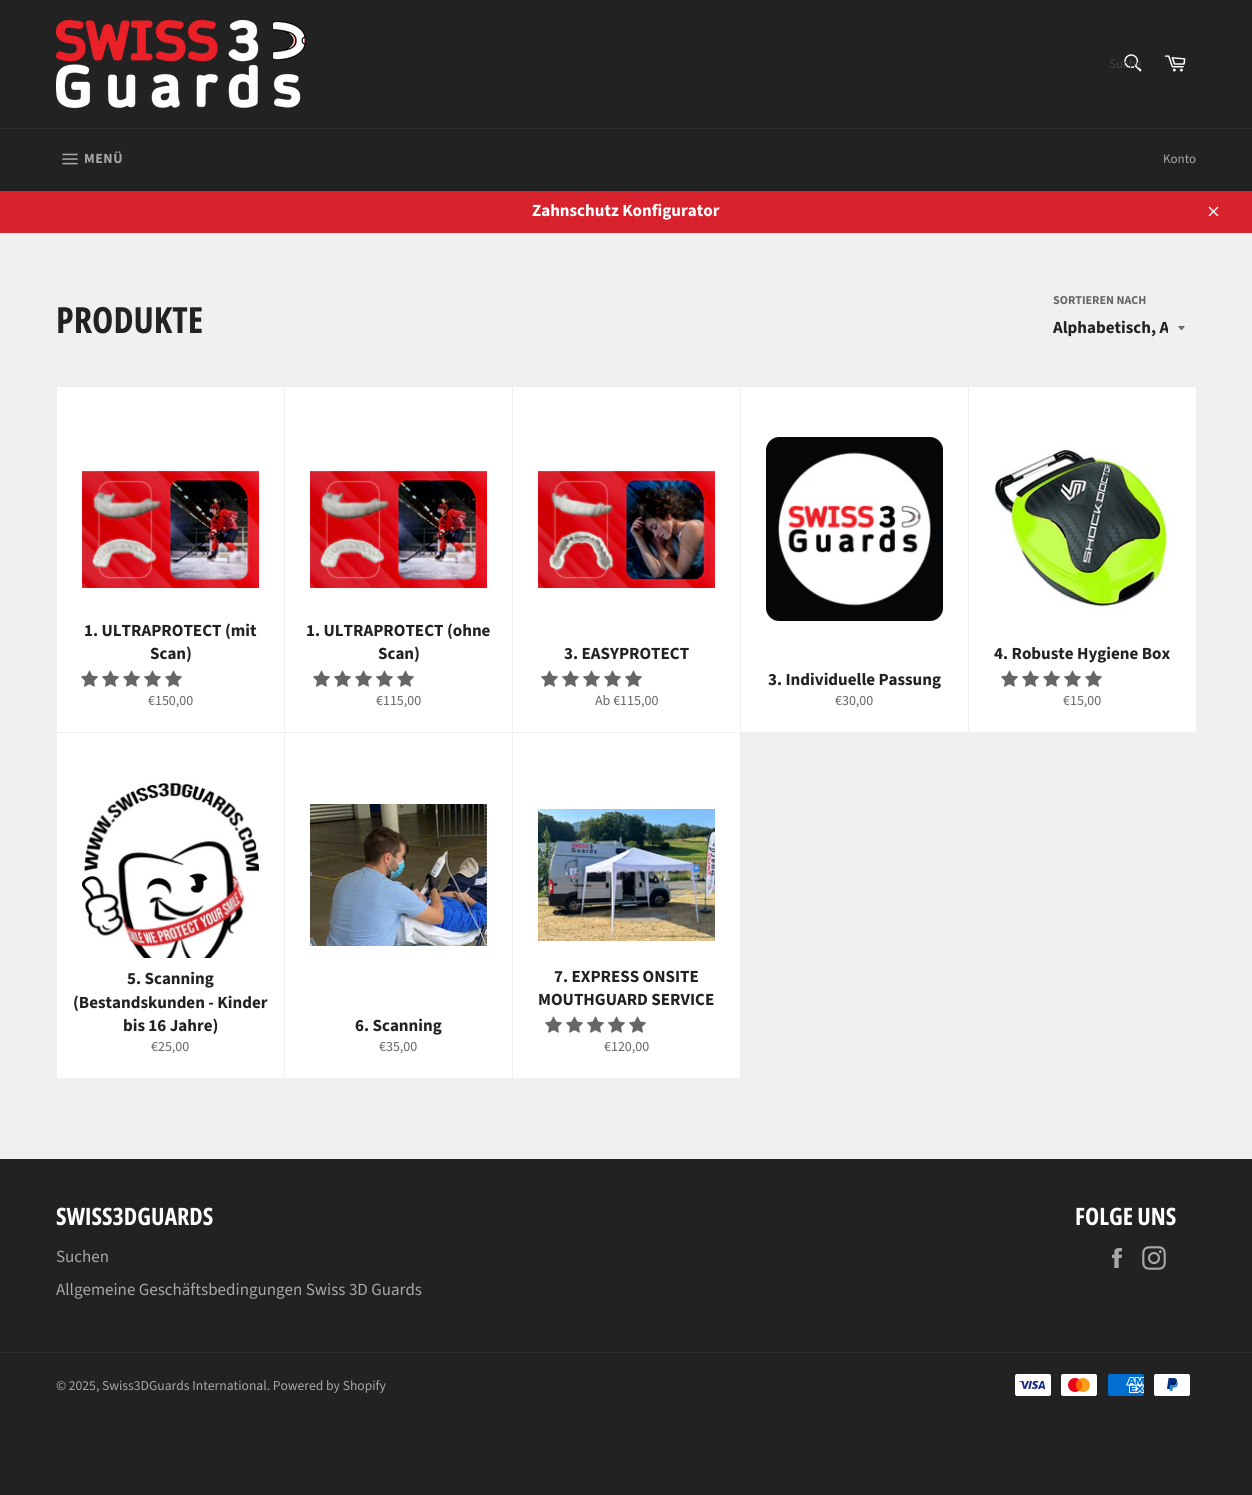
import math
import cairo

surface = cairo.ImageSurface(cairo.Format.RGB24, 1252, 1495)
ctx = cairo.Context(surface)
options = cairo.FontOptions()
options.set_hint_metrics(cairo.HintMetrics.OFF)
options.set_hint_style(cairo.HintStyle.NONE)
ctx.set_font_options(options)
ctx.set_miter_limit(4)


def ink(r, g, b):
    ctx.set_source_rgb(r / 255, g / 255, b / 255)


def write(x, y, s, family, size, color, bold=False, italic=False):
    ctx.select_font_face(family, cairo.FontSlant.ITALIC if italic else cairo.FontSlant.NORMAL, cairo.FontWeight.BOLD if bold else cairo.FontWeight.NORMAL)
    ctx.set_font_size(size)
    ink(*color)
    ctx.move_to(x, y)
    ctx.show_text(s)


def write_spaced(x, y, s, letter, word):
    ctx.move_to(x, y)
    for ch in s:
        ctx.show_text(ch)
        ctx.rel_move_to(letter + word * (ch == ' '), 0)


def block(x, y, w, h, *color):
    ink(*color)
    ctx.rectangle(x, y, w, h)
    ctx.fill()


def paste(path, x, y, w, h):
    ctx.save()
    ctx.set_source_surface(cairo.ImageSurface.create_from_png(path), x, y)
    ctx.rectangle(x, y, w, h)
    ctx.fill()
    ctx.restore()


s1 = dict(family="Source Sans Pro", size=13, color=(65, 65, 65))
s2 = dict(family="Source Sans Pro", size=13, color=(167, 167, 167))
s3 = dict(family="Source Sans Pro", size=17, color=(255, 255, 255), bold=True)
s4 = dict(family="Open Sans Condensed", size=36, color=(34, 34, 34), bold=True)
s5 = dict(family="Source Sans Pro", size=12, color=(102, 102, 102), bold=True)
s6 = dict(family="Source Sans Pro", size=17, color=(34, 34, 34), bold=True)
s7 = dict(family="Source Sans Pro", size=14, color=(102, 102, 102))
s8 = dict(family="Open Sans Condensed", size=24, color=(255, 255, 255), bold=True)
s9 = dict(family="Source Sans Pro", size=17, color=(167, 167, 167))
s10 = dict(family="Source Sans Pro", size=13.6, color=(167, 167, 167))

ink(34, 34, 34)
ctx.paint()
block(0, 233, 1252, 926, 240, 240, 240)
paste("pic1.png", 56, 20, 250, 88)
paste("pic2.png", 1124, 54, 18, 18)
ctx.save()
ctx.rectangle(1109, 55, 32, 18)
ctx.clip()
write(1109, 68, "Suche", **s1)
ctx.restore()
paste("pic3.png", 1164, 55, 22, 17)
block(0, 128, 1252, 1, 47, 47, 47)
paste("pic4.png", 62, 153, 16, 12)
ctx.select_font_face("Source Sans Pro", cairo.FontSlant.NORMAL, cairo.FontWeight.BOLD)
ctx.set_font_size(14)
ink(167, 167, 167)
write_spaced(84, 163, "MENÜ", 0.5, 0)
write(1163, 163, "Konto", **s2)
block(0, 191, 1252, 42, 216, 35, 47)
write(532, 216, "Zahnschutz Konfigurator", **s3)
paste("pic5.png", 1208, 206, 11, 11)
write(56, 333, "PRODUKTE", **s4)
write(1053, 304, "SORTIEREN NACH", **s5)
ctx.new_path()
ctx.move_to(1178, 326)
ctx.curve_to(1182.5, 331.5, 1180.5, 331.5, 1185, 326)
ctx.close_path()
ctx.fill()
ctx.save()
ctx.rectangle(1053, 317, 115, 23)
ctx.clip()
write(1053, 333, "Alphabetisch, A", **s6)
ctx.restore()
block(57, 387, 227, 345, 255, 255, 255)
paste("pic6.png", 82, 471, 177, 117)
write(84, 636, "1. ULTRAPROTECT (mit", **s6)
write(150, 659, "Scan)", **s6)
paste("pic7.png", 81, 670, 17, 17)
paste("pic7.png", 102, 670, 17, 17)
paste("pic7.png", 123, 670, 17, 17)
paste("pic7.png", 144, 670, 17, 17)
paste("pic7.png", 165, 670, 17, 17)
write(148, 705, "€150,00", **s7)
block(285, 387, 227, 345, 255, 255, 255)
paste("pic8.png", 310, 471, 177, 117)
write(306, 636, "1. ULTRAPROTECT (ohne", **s6)
write(378, 659, "Scan)", **s6)
paste("pic7.png", 313, 670, 17, 17)
paste("pic7.png", 334, 670, 17, 17)
paste("pic7.png", 355, 670, 17, 17)
paste("pic7.png", 376, 670, 17, 17)
paste("pic7.png", 397, 670, 17, 17)
write(376, 705, "€115,00", **s7)
block(513, 387, 227, 345, 255, 255, 255)
paste("pic9.png", 538, 471, 177, 117)
write(564, 659, "3. EASYPROTECT", **s6)
paste("pic7.png", 541, 670, 17, 17)
paste("pic7.png", 562, 670, 17, 17)
paste("pic7.png", 583, 670, 17, 17)
paste("pic7.png", 604, 670, 17, 17)
paste("pic7.png", 625, 670, 17, 17)
write(595, 705, "Ab €115,00", **s7)
block(741, 387, 227, 345, 255, 255, 255)
paste("pic10.png", 766, 437, 177, 184)
write(768, 685, "3. Individuelle Passung", **s6)
write(835, 705, "€30,00", **s7)
block(969, 387, 227, 345, 255, 255, 255)
paste("pic11.png", 994, 447, 177, 163)
write(994, 659, "4. Robuste Hygiene Box", **s6)
paste("pic7.png", 1001, 670, 17, 17)
paste("pic7.png", 1022, 670, 17, 17)
paste("pic7.png", 1043, 670, 17, 17)
paste("pic7.png", 1064, 670, 17, 17)
paste("pic7.png", 1085, 670, 17, 17)
write(1063, 705, "€15,00", **s7)
block(57, 733, 227, 345, 255, 255, 255)
paste("pic12.png", 82, 783, 177, 175)
write(127, 984, "5. Scanning", **s6)
write(73, 1008, "(Bestandskunden - Kinder", **s6)
write(123, 1031, "bis 16 Jahre)", **s6)
write(151, 1051, "€25,00", **s7)
block(285, 733, 227, 345, 255, 255, 255)
paste("pic13.png", 310, 804, 177, 142)
write(355, 1031, "6. Scanning", **s6)
write(379, 1051, "€35,00", **s7)
block(513, 733, 227, 345, 255, 255, 255)
paste("pic14.png", 538, 809, 177, 132)
write(554, 982, "7. EXPRESS ONSITE", **s6)
write(538, 1005, "MOUTHGUARD SERVICE", **s6)
paste("pic7.png", 545, 1016, 17, 17)
paste("pic7.png", 566, 1016, 17, 17)
paste("pic7.png", 587, 1016, 17, 17)
paste("pic7.png", 608, 1016, 17, 17)
paste("pic7.png", 629, 1016, 17, 17)
write(604, 1051, "€120,00", **s7)
write(56, 1225, "SWISS3DGUARDS", **s8)
write(56, 1262, "Suchen", **s9)
write(56, 1295, "Allgemeine Geschäftsbedingungen Swiss 3D Guards", **s9)
write(1075, 1225, "FOLGE UNS", **s8)
paste("pic15.png", 1112, 1248, 10, 20)
paste("pic16.png", 1142, 1246, 24, 24)
block(0, 1352, 1252, 1, 47, 47, 47)
write(56, 1390, "© 2025, Swiss3DGuards International. Powered by Shopify", **s10)
paste("pic17.png", 1015, 1374, 36, 22)
paste("pic18.png", 1061, 1374, 36, 22)
paste("pic19.png", 1108, 1374, 36, 22)
paste("pic20.png", 1154, 1374, 36, 22)
surface.write_to_png("screenshot.png")
